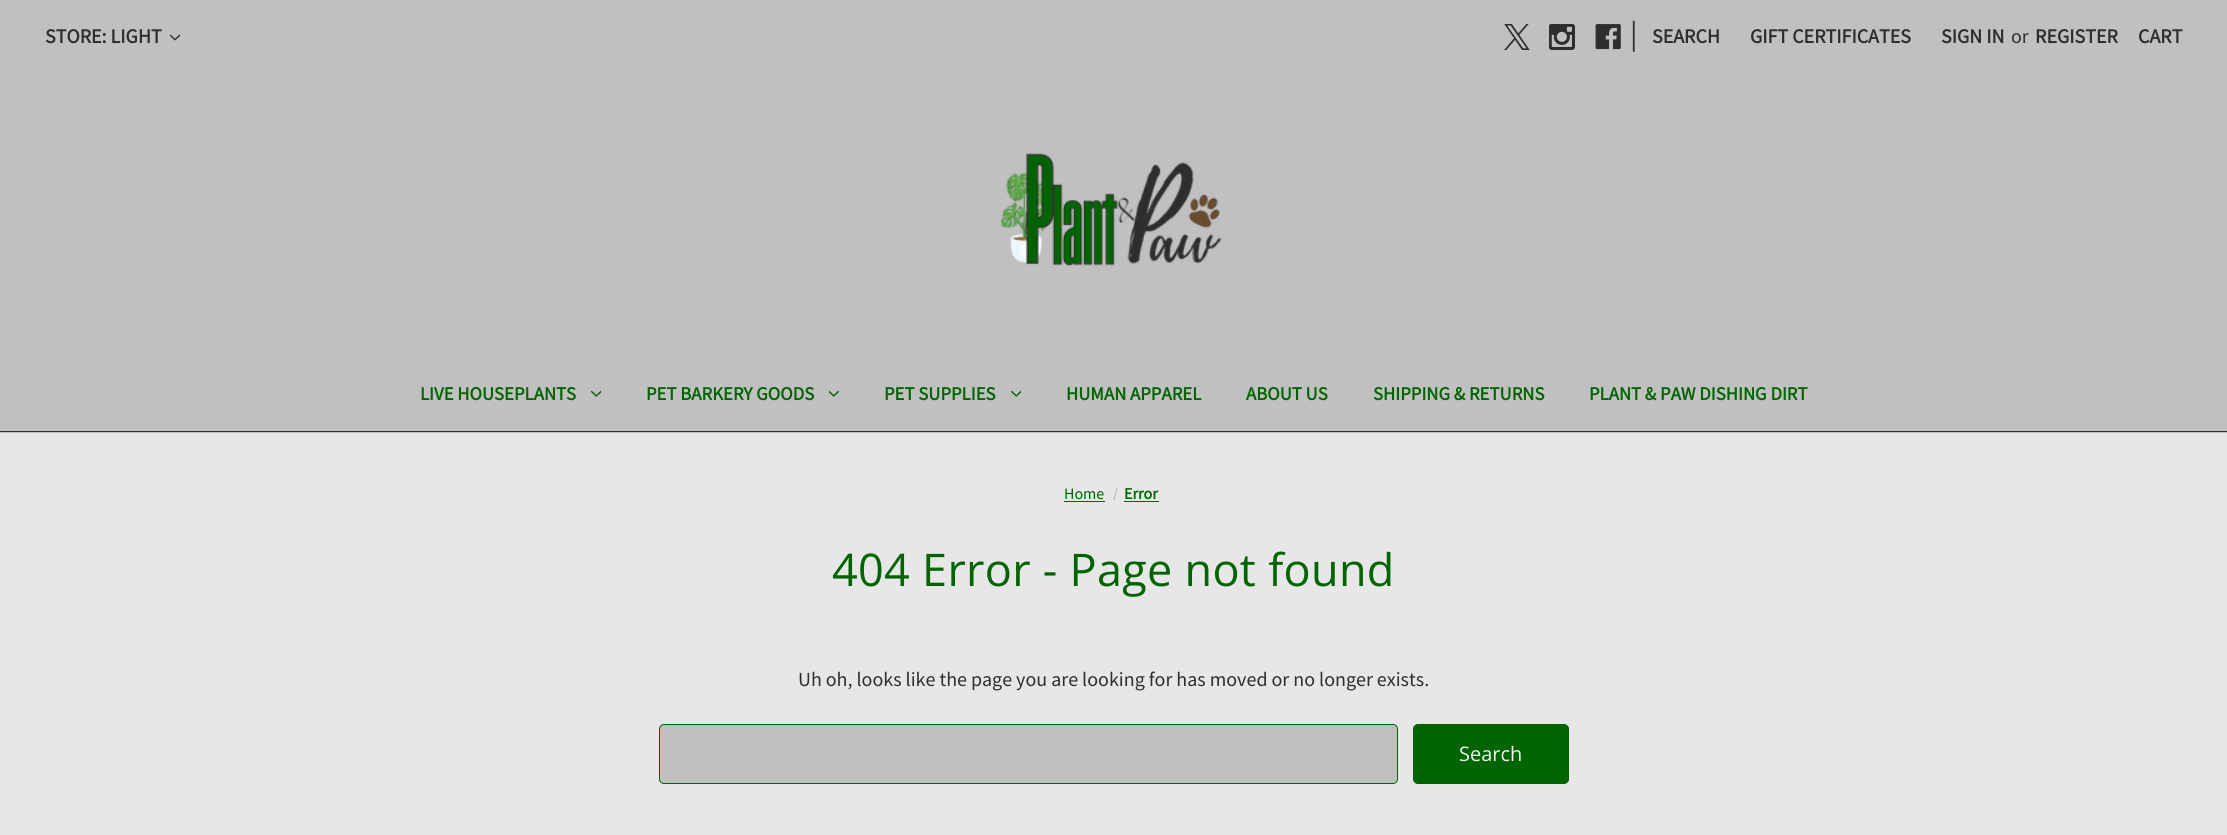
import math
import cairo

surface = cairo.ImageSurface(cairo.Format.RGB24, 2227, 835)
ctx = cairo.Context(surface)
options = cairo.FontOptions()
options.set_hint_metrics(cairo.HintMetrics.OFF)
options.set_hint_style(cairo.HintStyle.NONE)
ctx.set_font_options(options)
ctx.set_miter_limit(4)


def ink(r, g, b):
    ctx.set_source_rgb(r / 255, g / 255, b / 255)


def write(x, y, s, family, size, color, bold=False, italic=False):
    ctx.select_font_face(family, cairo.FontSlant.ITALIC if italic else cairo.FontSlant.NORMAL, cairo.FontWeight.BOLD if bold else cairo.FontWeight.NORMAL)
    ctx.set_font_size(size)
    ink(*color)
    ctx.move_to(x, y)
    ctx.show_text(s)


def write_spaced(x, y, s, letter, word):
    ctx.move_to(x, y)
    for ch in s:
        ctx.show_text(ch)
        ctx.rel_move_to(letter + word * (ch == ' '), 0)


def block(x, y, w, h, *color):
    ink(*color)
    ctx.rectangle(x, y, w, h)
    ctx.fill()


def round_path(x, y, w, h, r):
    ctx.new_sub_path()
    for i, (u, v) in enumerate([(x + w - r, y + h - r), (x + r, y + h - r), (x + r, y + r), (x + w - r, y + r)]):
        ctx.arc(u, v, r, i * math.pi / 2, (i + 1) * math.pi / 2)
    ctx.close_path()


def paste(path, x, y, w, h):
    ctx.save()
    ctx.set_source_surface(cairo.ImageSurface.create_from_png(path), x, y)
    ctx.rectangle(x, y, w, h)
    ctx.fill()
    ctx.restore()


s1 = dict(family="Source Sans Pro", size=20, color=(46, 46, 46), bold=True)
s2 = dict(family="Source Sans Pro", size=31, color=(46, 46, 46))
s3 = dict(family="Source Sans Pro", size=20, color=(46, 46, 46))
s4 = dict(family="Source Sans Pro", size=18.75, color=(0, 100, 0), bold=True)
s5 = dict(family="Source Sans Pro", size=16, color=(0, 100, 0))
s6 = dict(family="Source Sans Pro", size=16, color=(0, 100, 0), bold=True)
s7 = dict(family="Open Sans", size=20, color=(245, 245, 245))

ink(231, 231, 231)
ctx.paint()
block(0, 0, 2227, 433, 192, 192, 192)
block(0, 431, 2227, 1, 46, 46, 46)
write(45, 43, "STORE: LIGHT", **s1)
paste("pic1.png", 170, 34, 10, 7)
paste("pic2.png", 1504, 24, 26, 26)
paste("pic3.png", 1549, 24, 26, 26)
paste("pic4.png", 1595, 24, 26, 26)
write(1630, 44, "|", **s2)
write(1652, 43, "SEARCH", **s1)
write(1750, 43, "GIFT CERTIFICATES", **s1)
write(1941, 43, "SIGN IN", **s1)
write(2011, 43, "or", **s3)
write(2035, 43, "REGISTER", **s1)
write(2138, 43, "CART", **s1)
paste("pic5.png", 1001, 153, 221, 114)
write(420, 400, "LIVE HOUSEPLANTS", **s4)
paste("pic6.png", 591, 390, 10, 7)
write(646, 400, "PET BARKERY GOODS", **s4)
paste("pic7.png", 829, 390, 10, 7)
write(884, 400, "PET SUPPLIES", **s4)
paste("pic6.png", 1011, 390, 10, 7)
write(1066, 400, "HUMAN APPAREL", **s4)
write(1246, 400, "ABOUT US", **s4)
write(1373, 400, "SHIPPING & RETURNS", **s4)
write(1589, 400, "PLANT & PAW DISHING DIRT", **s4)
write(1064, 499, "Home", **s5)
block(1064, 501, 41, 1, 0, 100, 0)
ink(192, 192, 192)
ctx.new_path()
ctx.move_to(1116.5, 487.5)
ctx.line_to(1117.5, 488)
ctx.line_to(1114.5, 500.5)
ctx.line_to(1113, 500)
ctx.close_path()
ctx.fill()
write(1124, 499, "Error", **s6)
block(1124, 501, 35, 1, 0, 100, 0)
ctx.select_font_face("Open Sans")
ctx.set_font_size(45)
write_spaced(832, 586, "404 Error - Page not found", 0.3, 0)
write(798, 686, "Uh oh, looks like the page you are looking for has moved or no longer exists.", **s3)
ink(192, 192, 192)
round_path(659.5, 724.5, 738, 59, 4.5)
ctx.fill_preserve()
ink(0, 100, 0)
ctx.set_line_width(1)
ctx.stroke()
round_path(1413.5, 724.5, 155, 59, 4.5)
ctx.fill_preserve()
ctx.stroke()
write(1459, 761, "Search", **s7)
surface.write_to_png("screenshot.png")
